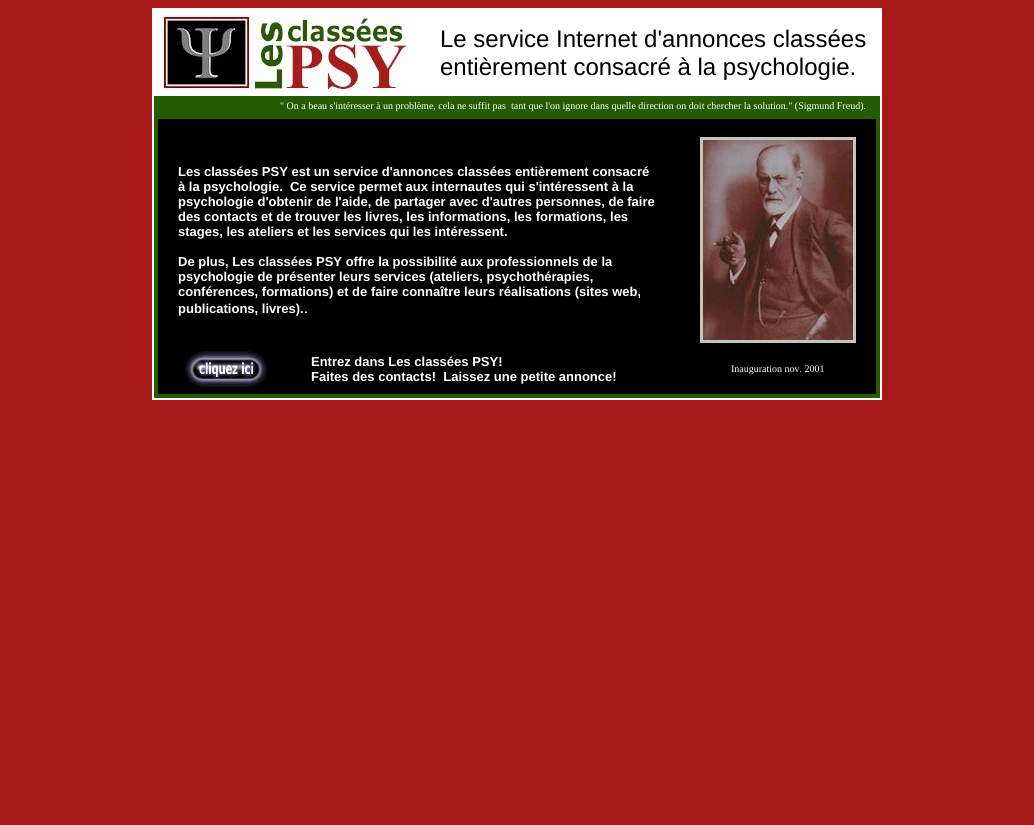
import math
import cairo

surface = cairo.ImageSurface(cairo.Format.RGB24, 1034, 825)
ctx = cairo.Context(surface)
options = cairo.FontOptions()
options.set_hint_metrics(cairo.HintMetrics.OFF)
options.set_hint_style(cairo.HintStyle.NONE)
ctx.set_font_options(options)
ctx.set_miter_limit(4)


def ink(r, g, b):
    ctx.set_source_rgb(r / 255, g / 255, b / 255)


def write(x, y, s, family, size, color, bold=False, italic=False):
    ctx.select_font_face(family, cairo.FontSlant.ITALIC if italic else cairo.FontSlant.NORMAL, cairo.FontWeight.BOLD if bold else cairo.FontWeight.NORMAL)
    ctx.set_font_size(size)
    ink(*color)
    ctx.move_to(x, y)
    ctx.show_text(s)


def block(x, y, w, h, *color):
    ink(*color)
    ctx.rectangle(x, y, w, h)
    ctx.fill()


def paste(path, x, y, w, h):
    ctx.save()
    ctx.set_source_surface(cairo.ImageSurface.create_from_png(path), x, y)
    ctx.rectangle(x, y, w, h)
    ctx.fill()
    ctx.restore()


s1 = dict(family="Liberation Sans", size=24, color=(0, 0, 0))
s2 = dict(family="Liberation Serif", size=10, color=(255, 255, 255))
s3 = dict(family="Liberation Sans", size=10, color=(255, 255, 255))
s4 = dict(family="Liberation Sans", size=13, color=(255, 255, 255), bold=True)
s5 = dict(family="Liberation Serif", size=16, color=(255, 255, 255))

ink(168, 26, 26)
ctx.paint()
block(152, 8, 730, 392, 255, 255, 255)
paste("pic1.png", 161, 14, 249, 78)
write(440, 47, "Le service Internet d'annonces classées", **s1)
write(440, 75, "entièrement consacré à la psychologie.", **s1)
block(154, 96, 726, 302, 37, 92, 2)
write(280, 109, "\" On a beau s'intéresser à un problème, cela ne suffit pas", **s2)
write(511, 109, "tant que l'on ignore dans quelle direction on doit chercher la solution.\" (Sigmund Freud)", **s2)
write(863, 109, ".", **s3)
block(158, 119, 718, 18, 0, 0, 0)
block(158, 137, 718, 206, 0, 0, 0)
write(178, 176, "Les classées PSY est un service d'annonces classées entièrement consacré", **s4)
write(178, 191, "à la psychologie.  Ce service permet aux internautes qui s'intéressent à la", **s4)
write(178, 206, "psychologie d'obtenir de l'aide, de partager avec d'autres personnes, de faire", **s4)
write(178, 221, "des contacts et de trouver les livres, les informations, les formations, les", **s4)
write(178, 236, "stages, les ateliers et les services qui les intéressent.", **s4)
write(178, 266, "De plus, Les classées PSY offre la possibilité aux professionnels de la", **s4)
write(178, 281, "psychologie de présenter leurs services (ateliers, psychothérapies,", **s4)
write(178, 296, "conférences, formations) et de faire connaître leurs réalisations (sites web,", **s4)
write(178, 313, "publications, livres).", **s4)
write(304, 313, ".", **s5)
paste("pic2.png", 700, 137, 156, 206)
block(158, 343, 718, 51, 0, 0, 0)
paste("pic3.png", 185, 351, 82, 36)
write(311, 366, "Entrez dans Les classées PSY!", **s4)
write(311, 381, "Faites des contacts!  Laissez une petite annonce!", **s4)
write(731, 372, "Inauguration nov. 2001", **s2)
surface.write_to_png("screenshot.png")
